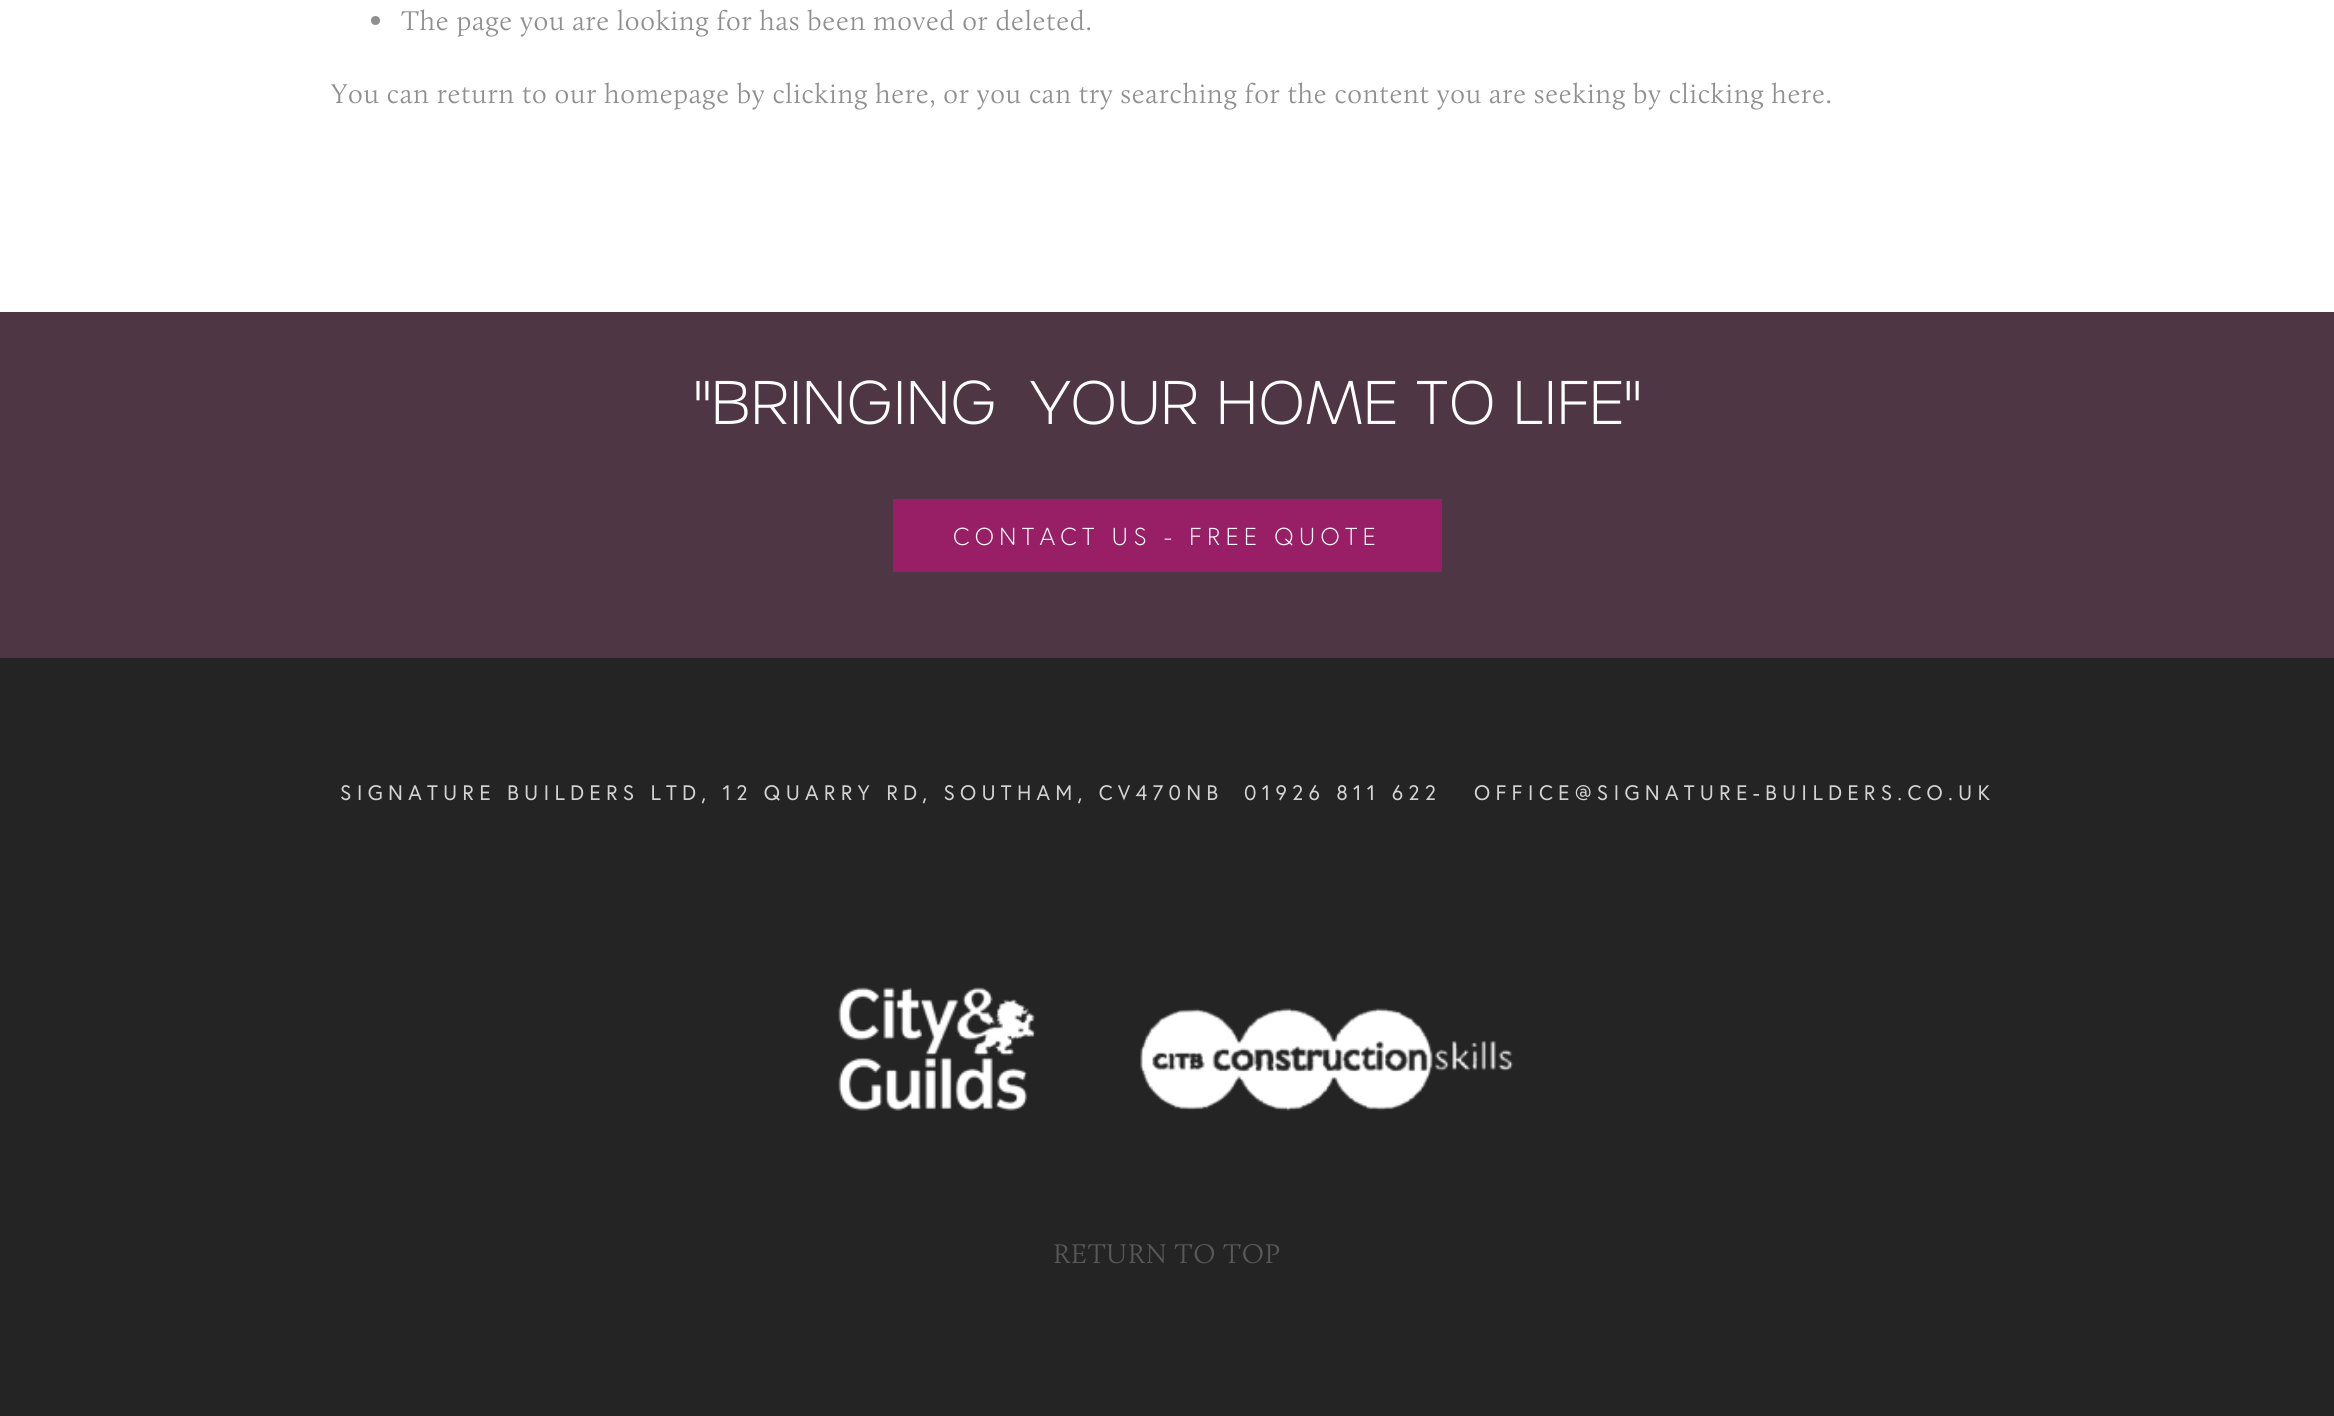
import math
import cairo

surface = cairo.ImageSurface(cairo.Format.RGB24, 2334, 1416)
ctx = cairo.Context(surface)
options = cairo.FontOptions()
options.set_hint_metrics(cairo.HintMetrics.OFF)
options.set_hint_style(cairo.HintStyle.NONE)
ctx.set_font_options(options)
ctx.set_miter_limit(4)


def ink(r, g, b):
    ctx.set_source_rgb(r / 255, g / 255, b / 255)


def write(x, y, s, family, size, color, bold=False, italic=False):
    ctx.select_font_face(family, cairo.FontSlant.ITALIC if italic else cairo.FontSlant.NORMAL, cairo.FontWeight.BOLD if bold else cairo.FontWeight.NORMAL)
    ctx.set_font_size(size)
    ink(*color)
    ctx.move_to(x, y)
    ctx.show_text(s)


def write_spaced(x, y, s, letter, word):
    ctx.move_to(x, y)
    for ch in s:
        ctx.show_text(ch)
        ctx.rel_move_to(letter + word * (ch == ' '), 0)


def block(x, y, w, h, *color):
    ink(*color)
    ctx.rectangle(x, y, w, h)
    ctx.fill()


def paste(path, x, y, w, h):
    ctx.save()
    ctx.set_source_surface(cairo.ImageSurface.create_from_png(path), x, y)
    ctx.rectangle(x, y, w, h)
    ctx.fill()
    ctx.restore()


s1 = dict(family="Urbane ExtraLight", size=59.5, color=(255, 255, 255))

ink(255, 255, 255)
ctx.paint()
ink(143, 143, 143)
ctx.arc(375.5, 20.5, 4.5, 0, 2 * math.pi)
ctx.fill()
ctx.select_font_face("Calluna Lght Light")
ctx.set_font_size(28)
write_spaced(401, 30, "The page you are looking for has been moved or deleted.", 0.7, 0)
write_spaced(331, 103, "You can return to our homepage by clicking here, or you can try searching for the content you are seeking by clicking here.", 0.7, 0)
block(0, 312, 2334, 346, 78, 54, 68)
write(694, 424, "\"BRINGING  YOUR HOME TO LIFE\"", **s1)
block(893, 499, 549, 73, 152, 31, 102)
ctx.select_font_face("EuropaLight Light")
ctx.set_font_size(24.5)
ink(255, 255, 255)
write_spaced(953, 545, "CONTACT US - FREE QUOTE", 5.25, 0)
block(0, 658, 2334, 758, 36, 36, 36)
ctx.select_font_face("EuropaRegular")
ctx.set_font_size(21)
ink(211, 211, 211)
write_spaced(340, 800, "SIGNATURE BUILDERS LTD, 12 QUARRY RD, SOUTHAM, CV470NB", 5.25, 0)
write_spaced(1244, 800, "01926 811 622", 5.25, 0)
write_spaced(1474, 800, "OFFICE@SIGNATURE-BUILDERS.CO.UK", 5.25, 0)
paste("pic1.png", 838, 987, 676, 124)
ctx.select_font_face("Calluna Lght Light")
ctx.set_font_size(28)
ink(88, 88, 88)
write_spaced(1053, 1263, "RETURN TO TOP", 0.7, 0)
surface.write_to_png("screenshot.png")
